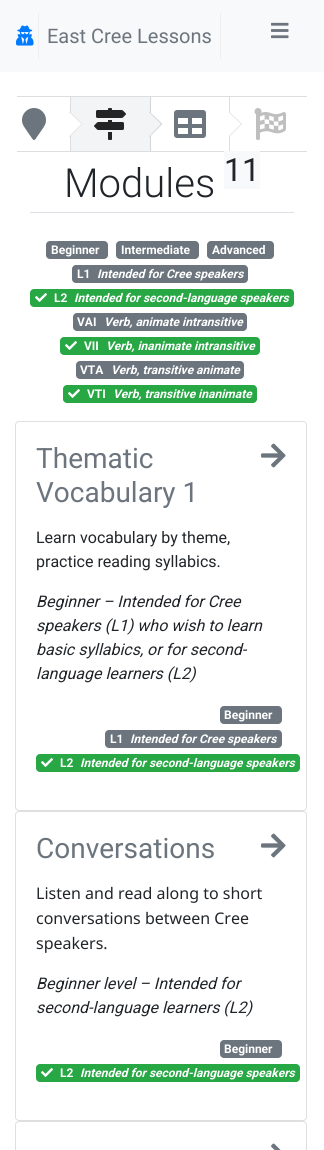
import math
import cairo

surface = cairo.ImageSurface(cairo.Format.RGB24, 324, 1150)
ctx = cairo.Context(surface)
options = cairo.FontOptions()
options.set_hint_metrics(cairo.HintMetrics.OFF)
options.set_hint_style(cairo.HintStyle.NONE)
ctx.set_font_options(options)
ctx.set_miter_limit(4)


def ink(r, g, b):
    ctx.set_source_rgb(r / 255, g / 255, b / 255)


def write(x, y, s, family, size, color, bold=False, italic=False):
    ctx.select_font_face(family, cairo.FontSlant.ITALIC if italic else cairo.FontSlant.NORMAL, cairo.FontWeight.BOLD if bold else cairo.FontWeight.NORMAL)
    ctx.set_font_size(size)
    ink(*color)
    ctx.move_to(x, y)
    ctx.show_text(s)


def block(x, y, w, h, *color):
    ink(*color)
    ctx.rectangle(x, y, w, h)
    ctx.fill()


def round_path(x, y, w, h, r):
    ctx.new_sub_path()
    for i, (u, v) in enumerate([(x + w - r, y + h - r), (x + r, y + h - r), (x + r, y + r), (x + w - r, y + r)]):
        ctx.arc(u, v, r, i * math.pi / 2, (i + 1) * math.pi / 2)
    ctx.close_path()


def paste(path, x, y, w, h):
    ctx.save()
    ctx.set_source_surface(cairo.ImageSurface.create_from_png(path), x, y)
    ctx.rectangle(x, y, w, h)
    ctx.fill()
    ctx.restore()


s1 = dict(family="Roboto", size=20, color=(108, 117, 125))
s2 = dict(family="Roboto Light", size=40, color=(33, 37, 41))
s3 = dict(family="Roboto", size=32, color=(33, 37, 41))
s4 = dict(family="Roboto", size=12, color=(255, 255, 255), bold=True)
s5 = dict(family="Roboto", size=12, color=(255, 255, 255), bold=True, italic=True)
s6 = dict(family="Roboto", size=28, color=(108, 117, 125))
s7 = dict(family="Roboto", size=16, color=(33, 37, 41))
s8 = dict(family="Roboto", size=16, color=(33, 37, 41), italic=True)
s9 = dict(family="Noto Sans", size=16, color=(33, 37, 41))

ink(255, 255, 255)
ctx.paint()
block(0, 0, 324, 72, 248, 249, 250)
paste("pic1.png", 16, 25, 18, 21)
block(220, 13, 1, 46, 238, 238, 238)
block(38, 13, 1, 46, 238, 238, 238)
write(47, 43, "East Cree Lessons", **s1)
paste("pic2.png", 271, 22, 18, 17)
block(17, 96, 290, 1, 222, 222, 222)
block(17, 151, 290, 1, 222, 222, 222)
block(70, 97, 1, 54, 222, 222, 222)
paste("pic3.png", 22, 108, 24, 32)
block(71, 97, 79, 54, 243, 244, 245)
ink(255, 255, 255)
ctx.new_path()
ctx.move_to(57, 124)
ctx.line_to(69.5, 111.5)
ctx.line_to(82.5, 124)
ctx.line_to(69.5, 137)
ctx.close_path()
ctx.fill()
ctx.set_source_rgba(0.133, 0.141, 0.149, 0.15)
ctx.new_path()
ctx.move_to(69.5, 111.5)
ctx.line_to(82.5, 124)
ctx.line_to(81.5, 124)
ctx.line_to(69, 112)
ctx.close_path()
ctx.move_to(82.5, 124)
ctx.line_to(69.5, 137)
ctx.line_to(69, 136.5)
ctx.line_to(81.5, 124)
ctx.close_path()
ctx.fill()
block(150, 97, 1, 54, 212, 213, 214)
paste("pic4.png", 94, 108, 32, 32)
ink(243, 244, 245)
ctx.new_path()
ctx.move_to(136.5, 124)
ctx.line_to(149.5, 111.5)
ctx.line_to(162.5, 124)
ctx.line_to(149.5, 137)
ctx.close_path()
ctx.fill()
ctx.set_source_rgba(0.133, 0.141, 0.149, 0.15)
ctx.new_path()
ctx.move_to(149.5, 111.5)
ctx.line_to(162.5, 124)
ctx.line_to(161, 124)
ctx.line_to(149, 112)
ctx.close_path()
ctx.move_to(162.5, 124)
ctx.line_to(149.5, 137)
ctx.line_to(149, 136.5)
ctx.line_to(161, 124)
ctx.close_path()
ctx.fill()
block(229, 97, 1, 54, 222, 222, 222)
paste("pic5.png", 174, 110, 32, 28)
ink(255, 255, 255)
ctx.new_path()
ctx.move_to(216.5, 124)
ctx.line_to(229, 111.5)
ctx.line_to(242, 124)
ctx.line_to(229, 137)
ctx.close_path()
ctx.fill()
ctx.set_source_rgba(0.133, 0.141, 0.149, 0.15)
ctx.new_path()
ctx.move_to(229, 111.5)
ctx.line_to(242, 124)
ctx.line_to(241, 124)
ctx.line_to(228.5, 112)
ctx.close_path()
ctx.move_to(242, 124)
ctx.line_to(229, 137)
ctx.line_to(228.5, 136.5)
ctx.line_to(241, 124)
ctx.close_path()
ctx.fill()
paste("pic6.png", 254, 108, 32, 32)
block(30, 212, 264, 1, 222, 226, 230)
write(64, 197, "Modules", **s2)
block(224, 151, 36, 38, 248, 249, 250)
write(224, 181, "11", **s3)
ink(108, 117, 125)
round_path(46, 241, 62, 18, 4)
ctx.fill()
write(51, 254, "Beginner", **s4)
ink(108, 117, 125)
round_path(116, 241, 83, 18, 4)
ctx.fill()
write(121, 254, "Intermediate", **s4)
ink(108, 117, 125)
round_path(207, 241, 67, 18, 4)
ctx.fill()
write(212, 254, "Advanced", **s4)
ink(108, 117, 125)
round_path(72, 265, 176, 18, 4)
ctx.fill()
write(77, 278, "L1", **s4)
write(97, 278, "Intended for Cree speakers", **s5)
ink(40, 167, 69)
round_path(30, 289, 264, 18, 4)
ctx.fill()
paste("pic7.png", 35, 293, 12, 9)
write(54, 302, "L2", **s4)
write(74, 302, "Intended for second-language speakers", **s5)
ink(108, 117, 125)
round_path(73, 313, 174, 18, 4)
ctx.fill()
write(77, 326, "VAI", **s4)
write(104, 326, "Verb, animate intransitive", **s5)
ink(40, 167, 69)
round_path(60, 337, 200, 18, 4)
ctx.fill()
paste("pic7.png", 65, 341, 12, 9)
write(84, 350, "VII", **s4)
write(106, 350, "Verb, inanimate intransitive", **s5)
ink(108, 117, 125)
round_path(76, 361, 168, 18, 4)
ctx.fill()
write(80, 374, "VTA", **s4)
write(111, 374, "Verb, transitive animate", **s5)
ink(40, 167, 69)
round_path(63, 385, 194, 18, 4)
ctx.fill()
paste("pic7.png", 68, 389, 12, 9)
write(87, 398, "VTI", **s4)
write(113, 398, "Verb, transitive inanimate", **s5)
round_path(15.5, 421.5, 291, 389, 3.5)
ink(223, 223, 223)
ctx.set_line_width(1)
ctx.stroke()
write(36, 468, "Thematic", **s6)
paste("pic8.png", 261, 443, 25, 25)
write(36, 502, "Vocabulary 1", **s6)
write(36, 543, "Learn vocabulary by theme,", **s7)
write(36, 567, "practice reading syllabics.", **s7)
write(36, 607, "Beginner – Intended for Cree", **s8)
write(36, 631, "speakers (L1) who wish to learn", **s8)
write(36, 655, "basic syllabics, or for second-", **s8)
write(36, 679, "language learners (L2)", **s8)
ink(108, 117, 125)
round_path(220, 706, 62, 18, 4)
ctx.fill()
write(224, 719, "Beginner", **s4)
ink(108, 117, 125)
round_path(105, 730, 177, 18, 4)
ctx.fill()
write(110, 743, "L1", **s4)
write(130, 743, "Intended for Cree speakers", **s5)
ink(40, 167, 69)
round_path(36, 754, 264, 18, 4)
ctx.fill()
paste("pic7.png", 41, 758, 12, 9)
write(60, 767, "L2", **s4)
write(80, 767, "Intended for second-language speakers", **s5)
round_path(15.5, 811.5, 291, 309, 3.5)
ink(223, 223, 223)
ctx.stroke()
write(36, 858, "Conversations", **s6)
paste("pic8.png", 261, 833, 25, 25)
write(36, 899, "Listen and read along to short", **s9)
write(36, 924, "conversations between Cree", **s9)
write(36, 949, "speakers.", **s9)
write(36, 989, "Beginner level – Intended for", **s8)
write(36, 1013, "second-language learners (L2)", **s8)
ink(108, 117, 125)
round_path(220, 1040, 62, 18, 4)
ctx.fill()
write(224, 1053, "Beginner", **s4)
ink(40, 167, 69)
round_path(36, 1064, 264, 18, 4)
ctx.fill()
paste("pic7.png", 41, 1068, 12, 9)
write(60, 1077, "L2", **s4)
write(80, 1077, "Intended for second-language speakers", **s5)
round_path(15.5, 1121.5, 291, 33, 3.5)
ink(223, 223, 223)
ctx.stroke()
paste("pic9.png", 271, 1143, 10, 7)
surface.write_to_png("screenshot.png")
